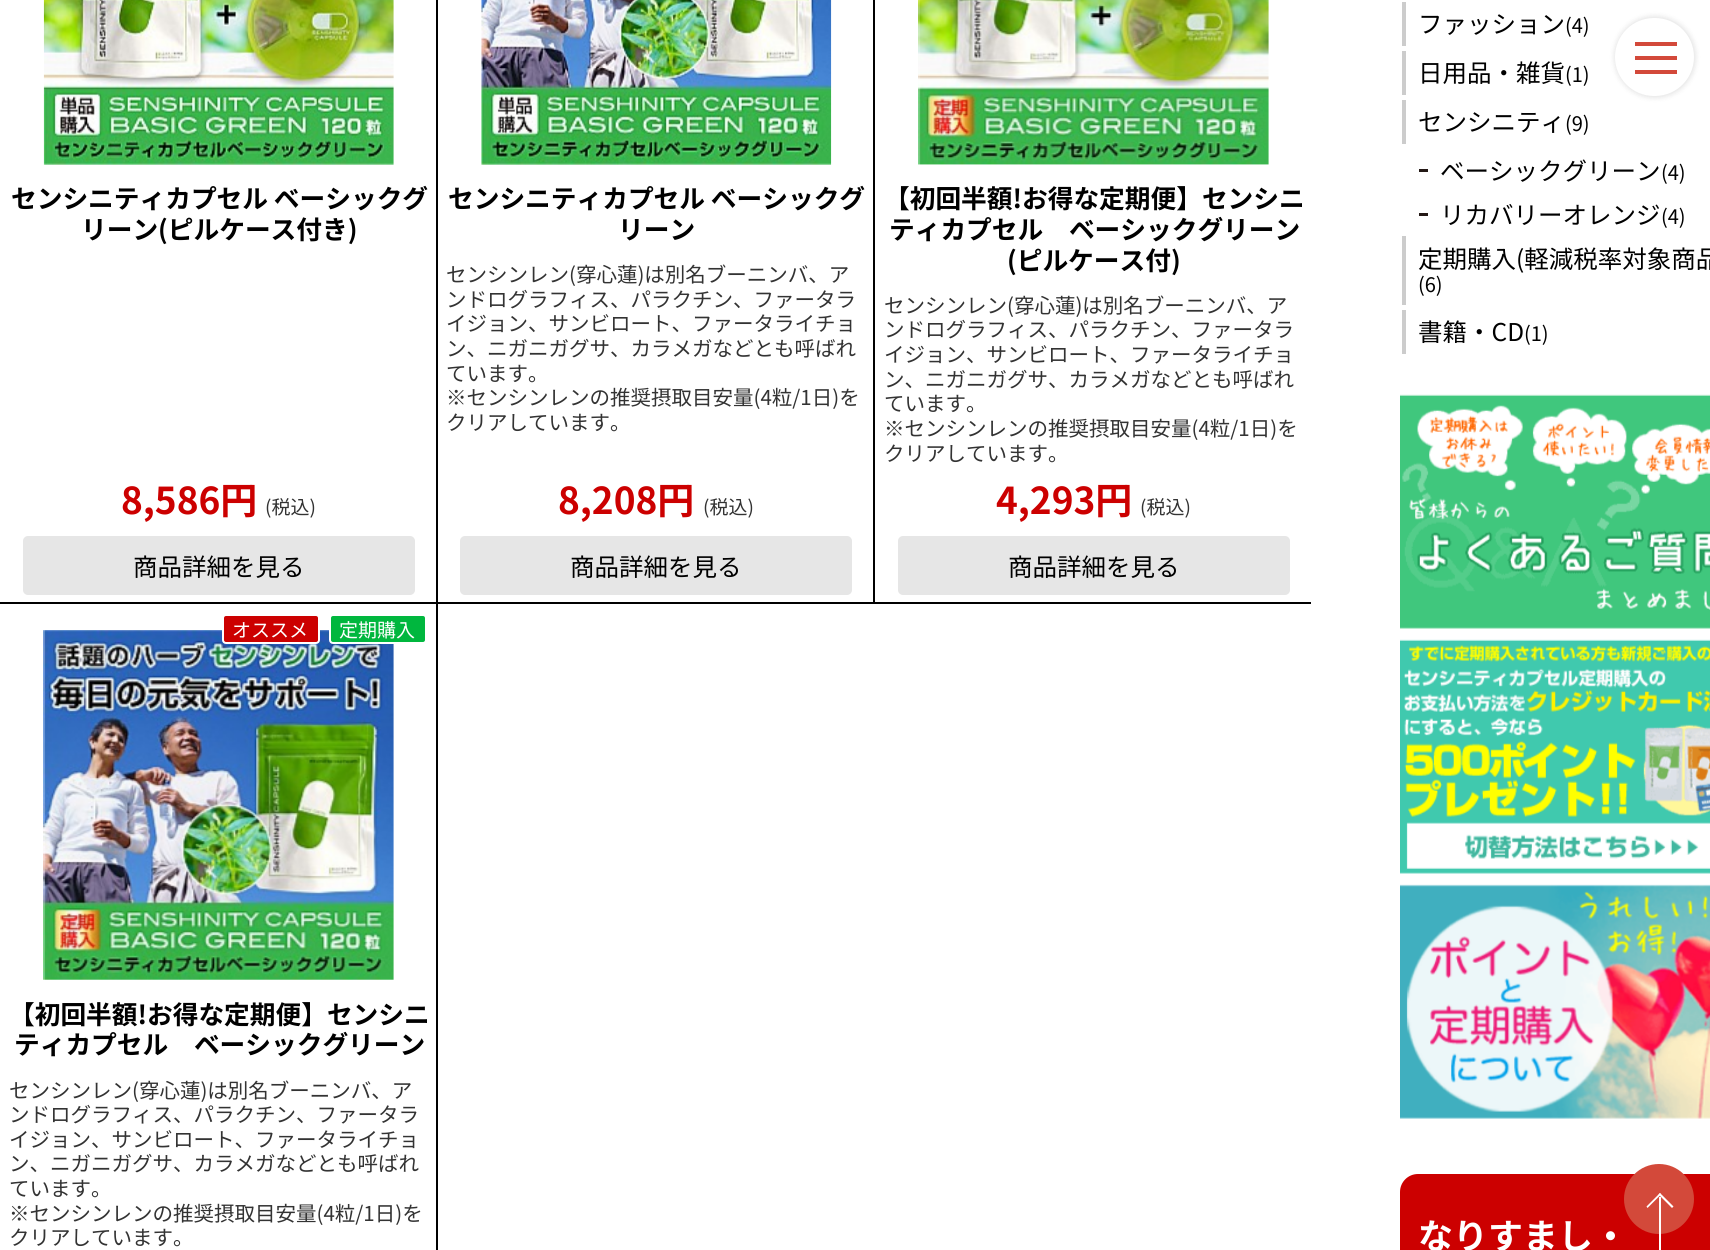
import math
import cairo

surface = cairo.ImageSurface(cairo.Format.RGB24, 1710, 1250)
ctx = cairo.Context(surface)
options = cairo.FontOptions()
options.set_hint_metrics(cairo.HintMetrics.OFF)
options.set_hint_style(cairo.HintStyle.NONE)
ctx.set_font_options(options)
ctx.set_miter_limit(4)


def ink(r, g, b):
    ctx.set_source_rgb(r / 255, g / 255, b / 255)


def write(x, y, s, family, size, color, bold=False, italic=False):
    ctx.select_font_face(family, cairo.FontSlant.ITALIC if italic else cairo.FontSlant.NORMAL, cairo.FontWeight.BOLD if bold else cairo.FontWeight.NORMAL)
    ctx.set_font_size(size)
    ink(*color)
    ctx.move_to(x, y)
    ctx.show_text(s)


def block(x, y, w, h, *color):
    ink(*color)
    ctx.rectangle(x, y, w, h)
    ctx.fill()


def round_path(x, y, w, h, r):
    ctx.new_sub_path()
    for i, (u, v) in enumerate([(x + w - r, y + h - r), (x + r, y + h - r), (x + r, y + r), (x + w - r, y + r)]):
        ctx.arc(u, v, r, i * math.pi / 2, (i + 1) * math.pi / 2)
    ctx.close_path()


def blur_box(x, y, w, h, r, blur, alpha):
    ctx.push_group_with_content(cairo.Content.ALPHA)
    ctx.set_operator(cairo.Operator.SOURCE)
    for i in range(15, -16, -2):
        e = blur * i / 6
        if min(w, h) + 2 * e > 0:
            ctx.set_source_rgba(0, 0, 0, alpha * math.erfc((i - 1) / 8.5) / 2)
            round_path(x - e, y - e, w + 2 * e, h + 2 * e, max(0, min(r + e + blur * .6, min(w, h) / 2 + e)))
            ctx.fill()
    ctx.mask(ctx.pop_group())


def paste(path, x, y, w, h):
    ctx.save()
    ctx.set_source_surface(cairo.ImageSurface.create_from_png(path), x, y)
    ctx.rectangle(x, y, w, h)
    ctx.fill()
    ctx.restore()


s1 = dict(family="Noto Sans JP", size=25.7, color=(0, 0, 0), bold=True)
s2 = dict(family="Noto Sans JP", size=37, color=(204, 0, 0), bold=True)
s3 = dict(family="Noto Sans JP", size=19, color=(51, 51, 51))
s4 = dict(family="Noto Sans JP", size=24.5, color=(0, 0, 0))
s5 = dict(family="Noto Sans JP", size=20.5, color=(51, 51, 51))
s6 = dict(family="Noto Sans JP", size=19, color=(255, 255, 255))
s7 = dict(family="Noto Sans JP", size=20, color=(0, 0, 0))
s8 = dict(family="Noto Sans JP", size=35, color=(255, 255, 255), bold=True)

ink(255, 255, 255)
ctx.paint()
ink(0, 0, 0)
blur_box(1614, 16, 82, 82, 41, 2.5, 0.1)
ink(255, 255, 255)
round_path(1615, 18, 79, 78, 39)
ctx.fill()
block(1635, 56, 42, 4, 211, 73, 58)
block(1635, 42, 42, 4, 211, 73, 58)
block(1635, 70, 42, 4, 211, 73, 58)
paste("pic1.png", 43, 0, 351, 165)
block(0, 602, 1313, 2, 0, 0, 0)
block(436, 0, 2, 1250, 0, 0, 0)
write(11, 208, "センシニティカプセル ベーシックグ", **s1)
write(81, 239, "リーン(ピルケース付き)", **s1)
write(121, 514, "8,586円", **s2)
write(265, 514, "(税込)", **s3)
ink(230, 230, 230)
round_path(23, 536, 392, 59, 5)
ctx.fill()
write(133, 576, "商品詳細を見る", **s4)
paste("pic2.png", 481, 0, 351, 165)
block(873, 0, 2, 604, 0, 0, 0)
write(448, 208, "センシニティカプセル ベーシックグ", **s1)
write(618, 239, "リーン", **s1)
write(446, 282, "センシンレン(穿心蓮)は別名ブーニンバ、ア", **s5)
write(446, 307, "ンドログラフィス、パラクチン、ファータラ", **s5)
write(446, 331, "イジョン、サンビロート、ファータライチョ", **s5)
write(446, 356, "ン、ニガニガグサ、カラメガなどとも呼ばれ", **s5)
write(446, 381, "ています。", **s5)
write(446, 405, "※センシンレンの推奨摂取目安量(4粒/1日)を", **s5)
write(446, 430, "クリアしています。", **s5)
write(558, 514, "8,208円", **s2)
write(703, 514, "(税込)", **s3)
ink(230, 230, 230)
round_path(460, 536, 392, 59, 5)
ctx.fill()
write(570, 576, "商品詳細を見る", **s4)
paste("pic3.png", 918, 0, 351, 165)
write(884, 208, "【初回半額!お得な定期便】センシニ", **s1)
write(889, 239, "ティカプセル　ベーシックグリーン", **s1)
write(1007, 270, "(ピルケース付)", **s1)
write(884, 313, "センシンレン(穿心蓮)は別名ブーニンバ、ア", **s5)
write(884, 337, "ンドログラフィス、パラクチン、ファータラ", **s5)
write(884, 362, "イジョン、サンビロート、ファータライチョ", **s5)
write(884, 387, "ン、ニガニガグサ、カラメガなどとも呼ばれ", **s5)
write(884, 411, "ています。", **s5)
write(884, 436, "※センシンレンの推奨摂取目安量(4粒/1日)を", **s5)
write(884, 461, "クリアしています。", **s5)
write(996, 514, "4,293円", **s2)
write(1140, 514, "(税込)", **s3)
ink(230, 230, 230)
round_path(898, 536, 392, 59, 5)
ctx.fill()
write(1008, 576, "商品詳細を見る", **s4)
block(1311, 602, 2, 2, 255, 255, 255)
paste("pic4.png", 43, 630, 351, 350)
ink(204, 0, 0)
round_path(223, 615, 96, 28, 3)
ctx.fill_preserve()
ink(255, 255, 255)
ctx.stroke()
write(232, 637, "オススメ", **s6)
ink(0, 183, 62)
round_path(330, 615, 96, 28, 3)
ctx.fill_preserve()
ink(255, 255, 255)
ctx.stroke()
write(339, 637, "定期購入", **s6)
write(9, 1024, "【初回半額!お得な定期便】センシニ", **s1)
write(14, 1054, "ティカプセル　ベーシックグリーン", **s1)
write(9, 1098, "センシンレン(穿心蓮)は別名ブーニンバ、ア", **s5)
write(9, 1122, "ンドログラフィス、パラクチン、ファータラ", **s5)
write(9, 1147, "イジョン、サンビロート、ファータライチョ", **s5)
write(9, 1171, "ン、ニガニガグサ、カラメガなどとも呼ばれ", **s5)
write(9, 1196, "ています。", **s5)
write(9, 1221, "※センシンレンの推奨摂取目安量(4粒/1日)を", **s5)
write(9, 1245, "クリアしています。", **s5)
block(1402, 2, 4, 44, 204, 204, 204)
write(1418, 33, "ファッション", **s4)
write(1565, 33, "(4)", **s7)
block(1402, 51, 4, 44, 204, 204, 204)
write(1418, 82, "日用品・雑貨", **s4)
write(1565, 82, "(1)", **s7)
block(1402, 100, 4, 44, 204, 204, 204)
write(1418, 131, "センシニティ", **s4)
write(1565, 131, "(9)", **s7)
block(1419, 169, 9, 3, 35, 24, 21)
write(1440, 180, "ベーシックグリーン", **s4)
write(1661, 180, "(4)", **s7)
block(1419, 213, 9, 3, 35, 24, 21)
write(1440, 224, "リカバリーオレンジ", **s4)
write(1661, 224, "(4)", **s7)
block(1402, 236, 4, 69, 204, 204, 204)
write(1418, 268, "定期購入(軽減税率対象商品", **s4)
write(1418, 292, "(6)", **s7)
block(1402, 310, 4, 44, 204, 204, 204)
write(1418, 341, "書籍・CD", **s4)
write(1524, 341, "(1)", **s7)
paste("pic5.png", 1400, 394, 310, 235)
paste("pic6.png", 1400, 639, 310, 235)
paste("pic7.png", 1400, 884, 310, 235)
ink(204, 0, 0)
round_path(1400, 1174, 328, 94, 18)
ctx.fill()
write(1418, 1249, "なりすまし・", **s8)
ink(211, 73, 58)
ctx.new_path()
ctx.arc(1659, 1199, 35, 0, 2 * math.pi)
ctx.fill()
block(1659, 1197, 2, 53, 255, 255, 255)
ctx.new_path()
ctx.move_to(1660, 1193)
ctx.line_to(1673.5, 1206.5)
ctx.line_to(1672, 1208)
ctx.line_to(1658.5, 1194.5)
ctx.close_path()
ctx.fill()
ctx.new_path()
ctx.move_to(1660, 1193)
ctx.line_to(1661, 1194.5)
ctx.line_to(1647.5, 1208)
ctx.line_to(1646.5, 1206.5)
ctx.close_path()
ctx.fill()
surface.write_to_png("screenshot.png")
